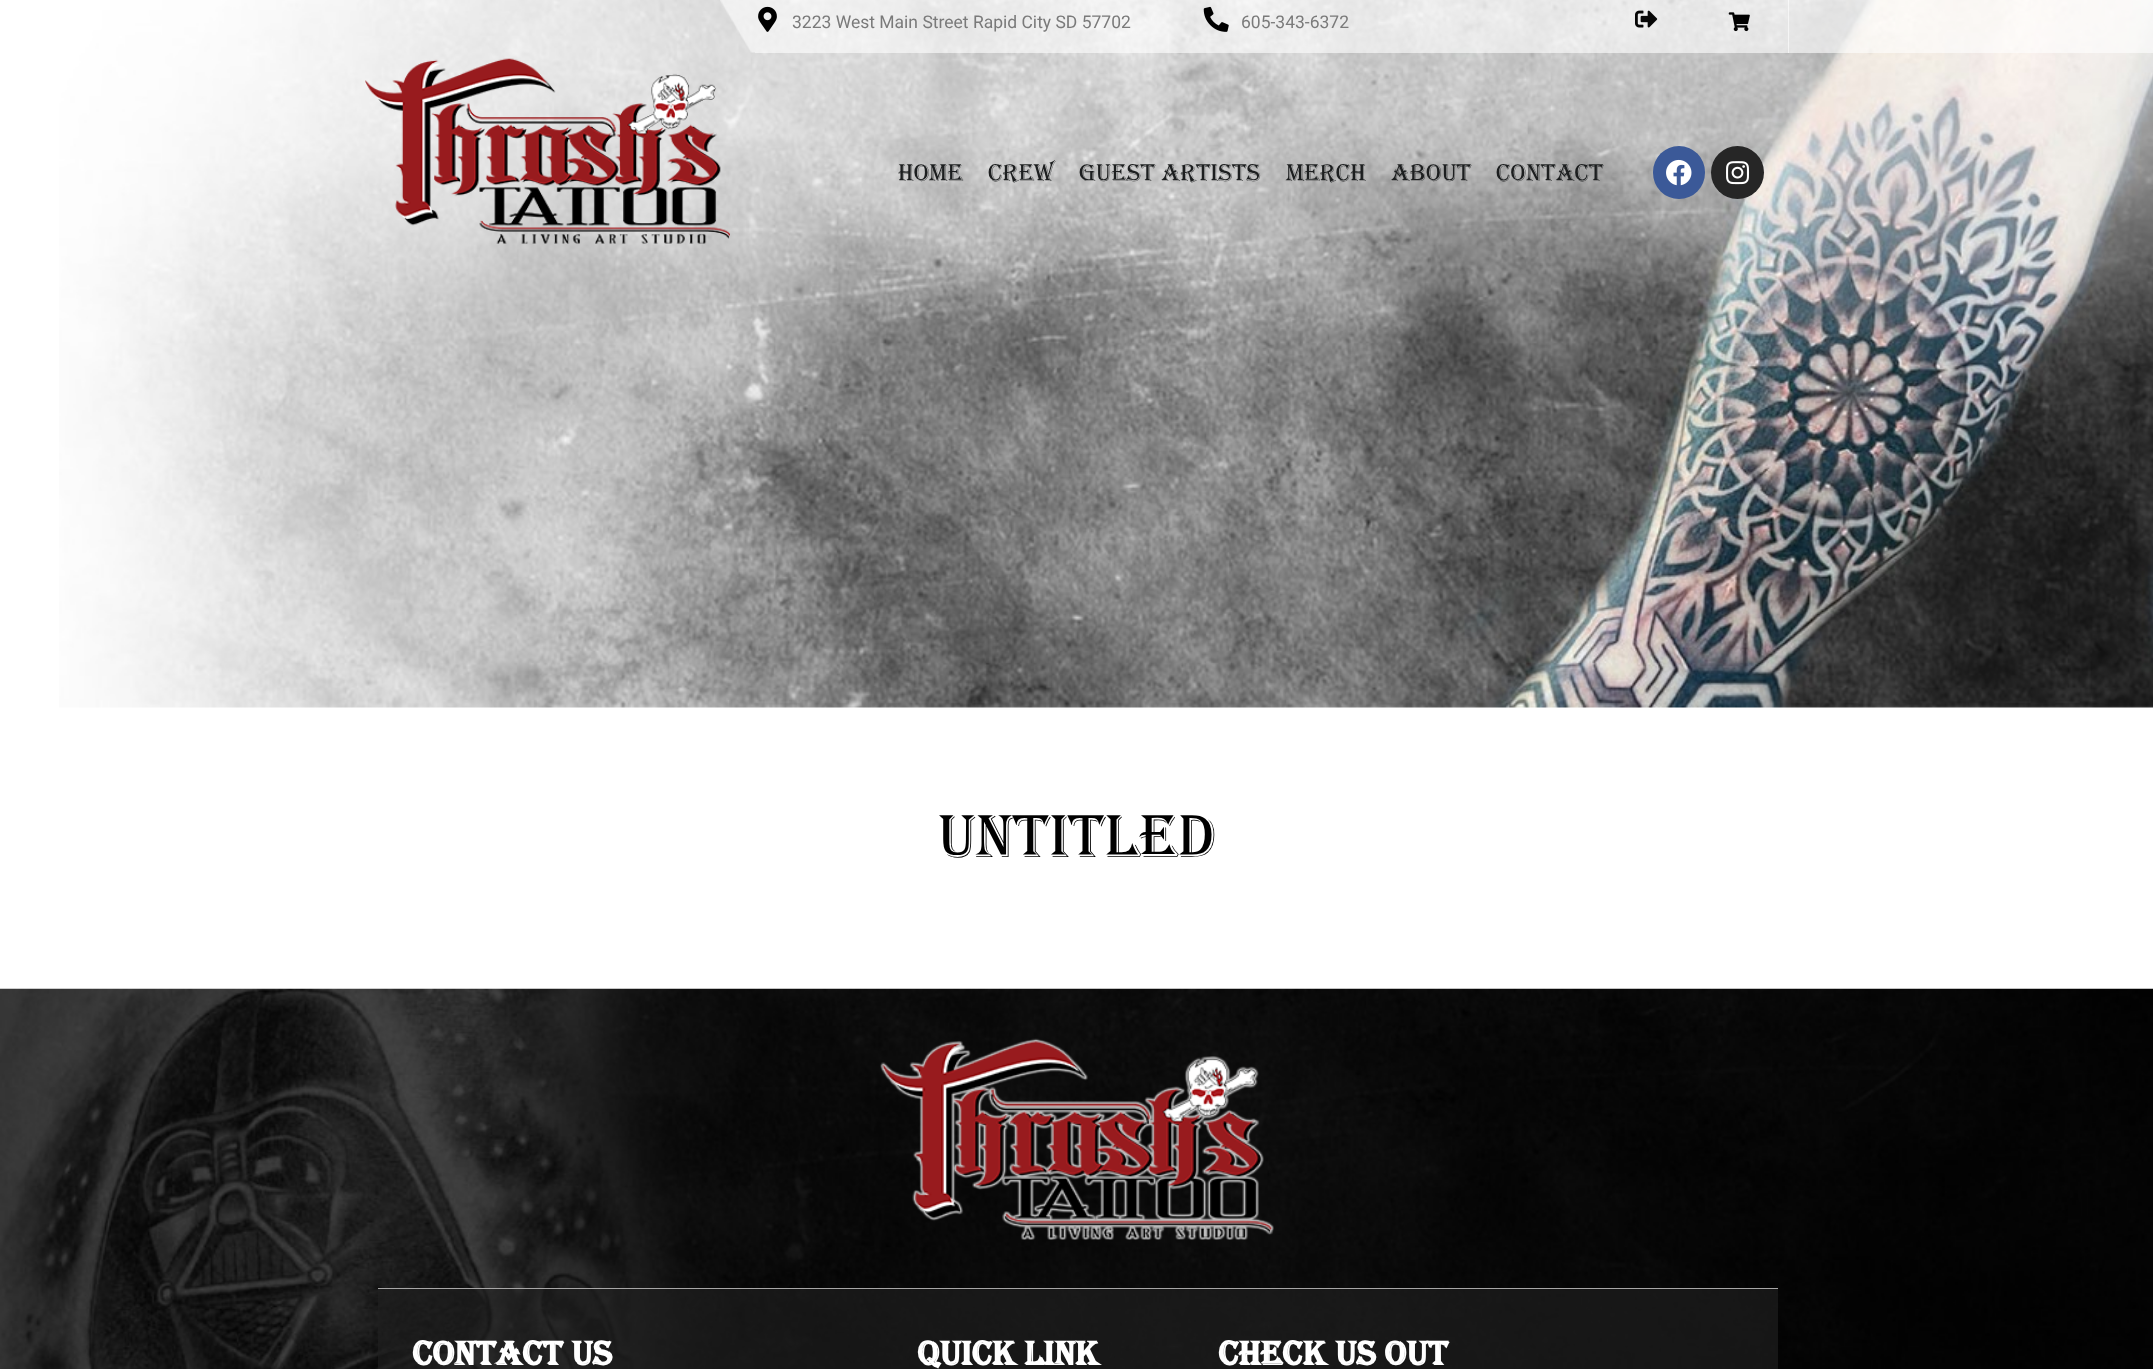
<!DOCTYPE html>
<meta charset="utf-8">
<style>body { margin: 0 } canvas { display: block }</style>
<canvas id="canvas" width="2153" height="1369"></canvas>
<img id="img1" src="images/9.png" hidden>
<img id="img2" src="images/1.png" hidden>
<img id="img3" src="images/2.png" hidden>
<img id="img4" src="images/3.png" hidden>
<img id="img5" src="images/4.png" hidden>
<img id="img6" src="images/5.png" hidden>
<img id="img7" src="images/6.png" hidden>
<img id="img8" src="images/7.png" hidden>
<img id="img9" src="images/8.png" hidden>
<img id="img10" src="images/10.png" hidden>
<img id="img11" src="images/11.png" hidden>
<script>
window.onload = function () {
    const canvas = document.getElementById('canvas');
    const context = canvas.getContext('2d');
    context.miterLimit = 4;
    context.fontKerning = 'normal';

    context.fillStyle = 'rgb(255, 255, 255)';
    context.fillRect(0, 0, 2153, 1369);
    context.drawImage(document.getElementById('img1'), 59, 0, 2094, 708);
    context.drawImage(document.getElementById('img2'), 365, 58, 365, 186);
    context.fillStyle = 'rgba(255, 255, 255, 0.6)';
    context.fillRect(755, 0, 1034, 53);
    context.drawImage(document.getElementById('img3'), 720, 0, 35, 53);
    context.drawImage(document.getElementById('img4'), 758, 6, 19, 26);
    context.drawImage(document.getElementById('img5'), 1203, 6, 26, 26);
    context.drawImage(document.getElementById('img6'), 1635, 10, 23, 18);
    context.drawImage(document.getElementById('img7'), 1728, 12, 22, 20);
    context.fillRect(1788, 0, 365, 53);
    context.fillStyle = 'rgb(59, 89, 152)';
    context.beginPath();
    context.roundRect(1653, 146, 52, 53, 26);
    context.fill();
    context.drawImage(document.getElementById('img8'), 1666, 159, 26, 27);
    context.fillStyle = 'rgb(38, 38, 38)';
    context.beginPath();
    context.arc(1737.5, 172.5, 26.5, 0, 2 * Math.PI);
    context.fill();
    context.drawImage(document.getElementById('img9'), 1726, 161, 24, 24);
    context.drawImage(document.getElementById('img10'), 0, 988, 2153, 381);
    context.drawImage(document.getElementById('img11'), 880, 1038, 394, 202);
    context.fillStyle = 'rgba(33, 33, 33, 0.65)';
    context.fillRect(378, 1289, 1400, 80);
    context.fillStyle = 'rgb(167, 166, 166)';
    context.fillRect(378, 1288, 1400, 1);
    context.font = '17.5px Roboto';
    context.fillStyle = 'rgb(122, 122, 122)';
    context.fillText('3223 West Main Street Rapid City SD 57702', 792, 28);
    context.fillText('605-343-6372', 1241, 28);
    context.font = '25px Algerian';
    context.fillStyle = 'rgb(28, 30, 31)';
    context.fillText('Home', 898, 181);
    context.fillText('Crew', 988, 181);
    context.fillText('Guest Artists', 1079, 181);
    context.fillText('Merch', 1286, 181);
    context.fillText('About', 1391, 181);
    context.fillText('Contact', 1496, 181);
    context.font = '62.5px Algerian';
    context.fillStyle = 'rgb(0, 0, 0)';
    context.fillText('Untitled', 938, 857);
    context.font = 'bold 35px Algerian';
    context.fillStyle = 'rgb(255, 255, 255)';
    context.fillText('CONTACT US', 412, 1365);
    context.fillText('QUICK LINK', 917, 1365);
    context.fillText('CHECK US OUT', 1218, 1365);
};
</script>
